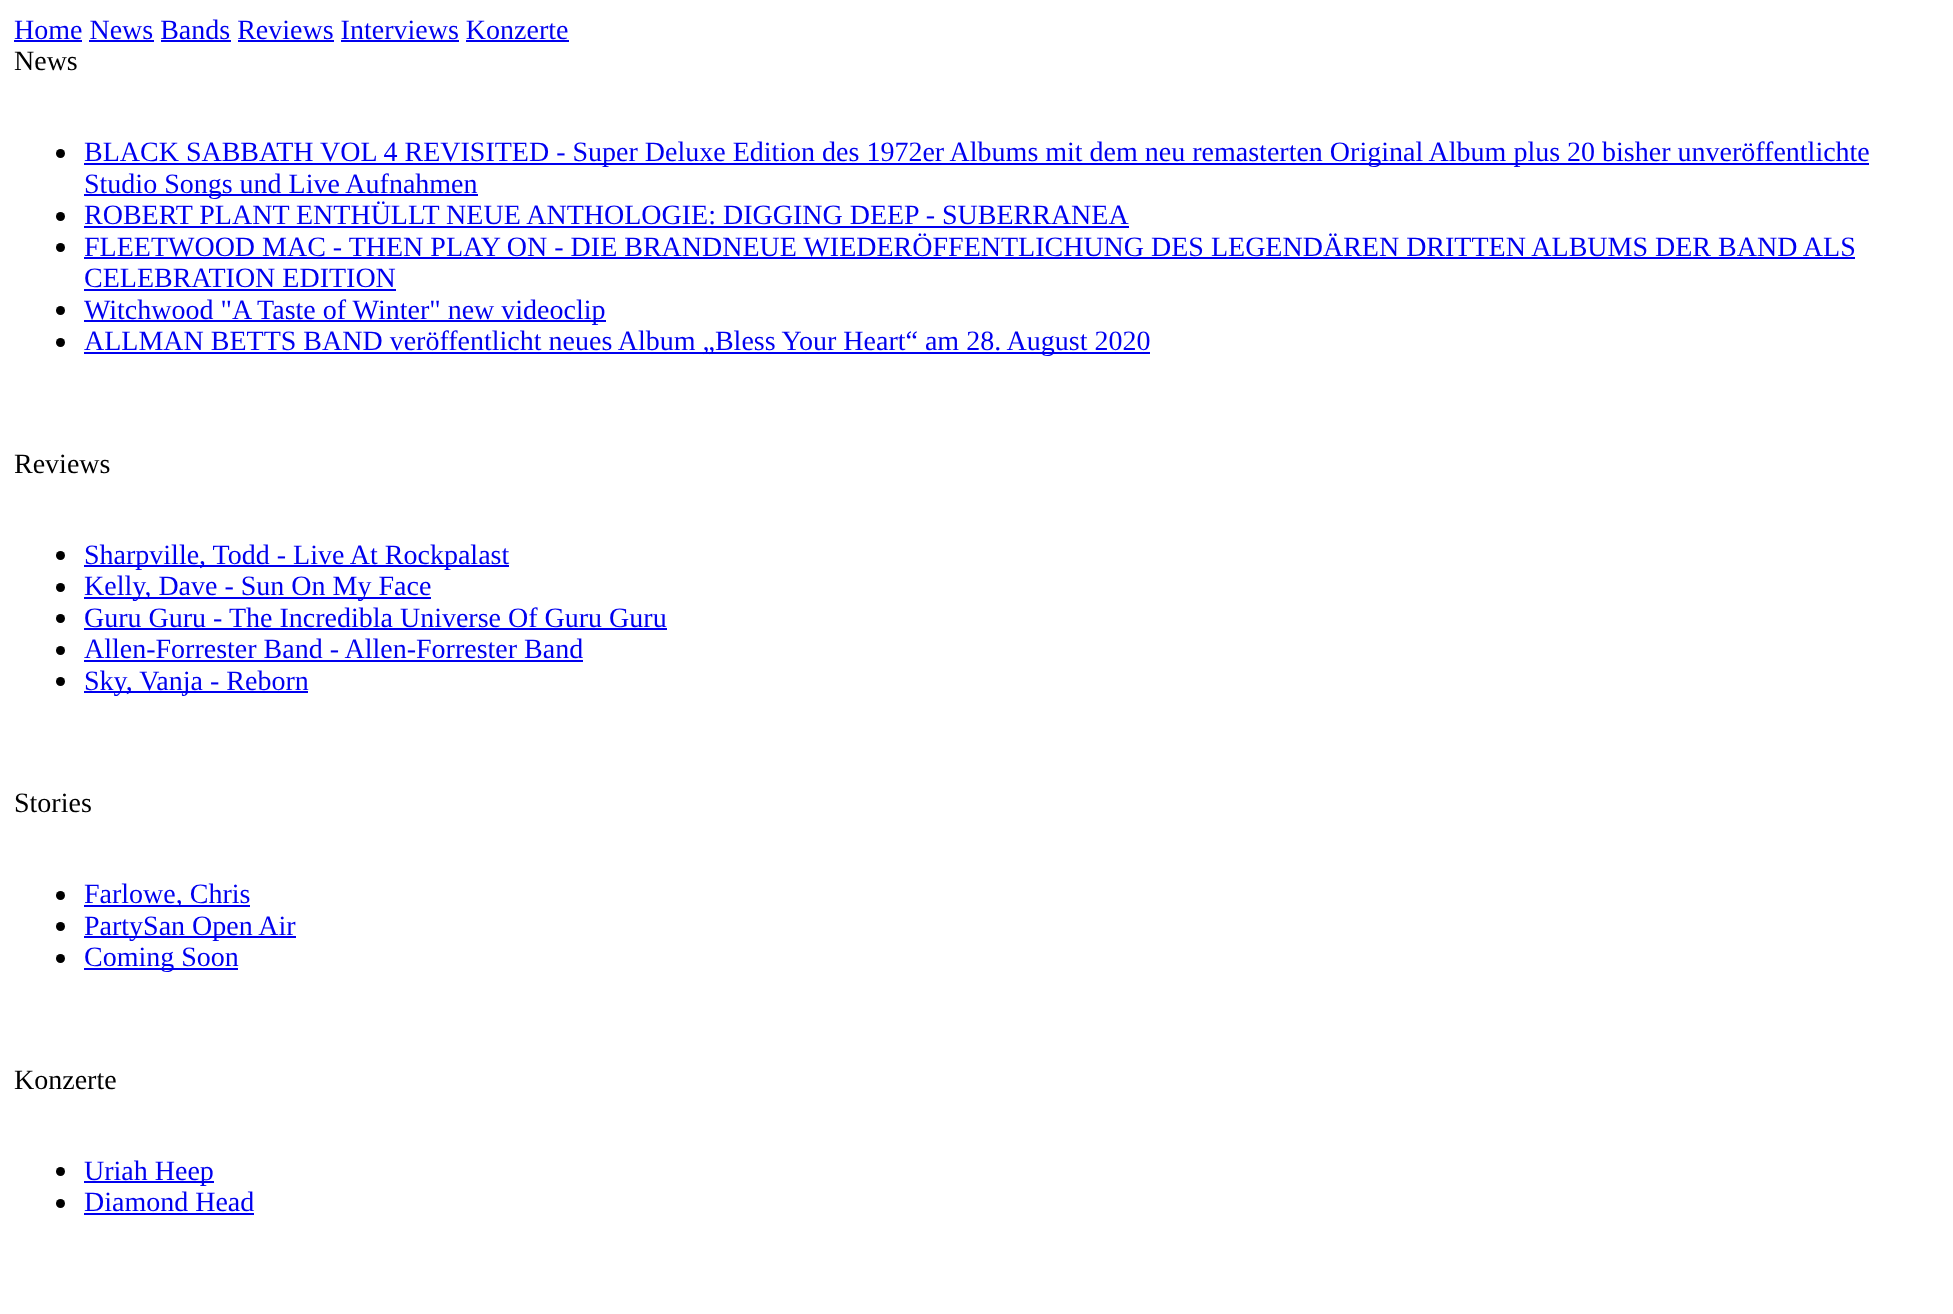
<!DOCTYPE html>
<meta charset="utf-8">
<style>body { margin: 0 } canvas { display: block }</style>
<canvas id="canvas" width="1953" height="1314"></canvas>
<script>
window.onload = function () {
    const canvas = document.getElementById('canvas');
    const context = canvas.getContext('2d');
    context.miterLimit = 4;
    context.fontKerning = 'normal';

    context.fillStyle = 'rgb(255, 255, 255)';
    context.fillRect(0, 0, 1953, 1314);
    context.fillStyle = 'rgb(0, 0, 238)';
    context.fillRect(14, 40, 68, 2);
    context.fillRect(89, 40, 65, 2);
    context.fillRect(161, 40, 70, 2);
    context.fillRect(238, 40, 96, 2);
    context.fillRect(341, 40, 118, 2);
    context.fillRect(466, 40, 103, 2);
    context.fillStyle = 'rgb(0, 0, 0)';
    context.beginPath();
    context.arc(60.5, 153.5, 4.5, 0, 2 * Math.PI);
    context.fill();
    context.fillStyle = 'rgb(0, 0, 238)';
    context.fillRect(84, 163, 1785, 2);
    context.fillRect(84, 194, 394, 2);
    context.fillStyle = 'rgb(0, 0, 0)';
    context.beginPath();
    context.arc(60.5, 216.5, 4.5, 0, 2 * Math.PI);
    context.fill();
    context.fillStyle = 'rgb(0, 0, 238)';
    context.fillRect(84, 226, 1045, 2);
    context.fillStyle = 'rgb(0, 0, 0)';
    context.beginPath();
    context.arc(60.5, 247.5, 4.5, 0, 2 * Math.PI);
    context.fill();
    context.fillStyle = 'rgb(0, 0, 238)';
    context.fillRect(84, 257, 1771, 2);
    context.fillRect(84, 289, 312, 2);
    context.fillStyle = 'rgb(0, 0, 0)';
    context.beginPath();
    context.arc(60.5, 310.5, 4.5, 0, 2 * Math.PI);
    context.fill();
    context.fillStyle = 'rgb(0, 0, 238)';
    context.fillRect(84, 320, 522, 2);
    context.fillStyle = 'rgb(0, 0, 0)';
    context.beginPath();
    context.arc(60.5, 342.5, 4.5, 0, 2 * Math.PI);
    context.fill();
    context.fillStyle = 'rgb(0, 0, 238)';
    context.fillRect(84, 352, 1066, 2);
    context.fillStyle = 'rgb(0, 0, 0)';
    context.beginPath();
    context.arc(60.5, 555.5, 4.5, 0, 2 * Math.PI);
    context.fill();
    context.fillStyle = 'rgb(0, 0, 238)';
    context.fillRect(84, 565, 425, 2);
    context.fillStyle = 'rgb(0, 0, 0)';
    context.beginPath();
    context.arc(60.5, 587.5, 4.5, 0, 2 * Math.PI);
    context.fill();
    context.fillStyle = 'rgb(0, 0, 238)';
    context.fillRect(84, 597, 347, 2);
    context.fillStyle = 'rgb(0, 0, 0)';
    context.beginPath();
    context.arc(60.5, 618.5, 4.5, 0, 2 * Math.PI);
    context.fill();
    context.fillStyle = 'rgb(0, 0, 238)';
    context.fillRect(84, 628, 583, 2);
    context.fillStyle = 'rgb(0, 0, 0)';
    context.beginPath();
    context.arc(60.5, 650.5, 4.5, 0, 2 * Math.PI);
    context.fill();
    context.fillStyle = 'rgb(0, 0, 238)';
    context.fillRect(84, 660, 499, 2);
    context.fillStyle = 'rgb(0, 0, 0)';
    context.beginPath();
    context.arc(60.5, 681.5, 4.5, 0, 2 * Math.PI);
    context.fill();
    context.fillStyle = 'rgb(0, 0, 238)';
    context.fillRect(84, 691, 224, 2);
    context.fillStyle = 'rgb(0, 0, 0)';
    context.beginPath();
    context.arc(60.5, 895.5, 4.5, 0, 2 * Math.PI);
    context.fill();
    context.fillStyle = 'rgb(0, 0, 238)';
    context.fillRect(84, 905, 166, 2);
    context.fillStyle = 'rgb(0, 0, 0)';
    context.beginPath();
    context.arc(60.5, 926.5, 4.5, 0, 2 * Math.PI);
    context.fill();
    context.fillStyle = 'rgb(0, 0, 238)';
    context.fillRect(84, 936, 212, 2);
    context.fillStyle = 'rgb(0, 0, 0)';
    context.beginPath();
    context.arc(60.5, 958.5, 4.5, 0, 2 * Math.PI);
    context.fill();
    context.fillStyle = 'rgb(0, 0, 238)';
    context.fillRect(84, 968, 154, 2);
    context.fillStyle = 'rgb(0, 0, 0)';
    context.beginPath();
    context.arc(60.5, 1171.5, 4.5, 0, 2 * Math.PI);
    context.fill();
    context.fillStyle = 'rgb(0, 0, 238)';
    context.fillRect(84, 1181, 130, 2);
    context.fillStyle = 'rgb(0, 0, 0)';
    context.beginPath();
    context.arc(60.5, 1203.5, 4.5, 0, 2 * Math.PI);
    context.fill();
    context.fillStyle = 'rgb(0, 0, 238)';
    context.fillRect(84, 1213, 170, 2);
    context.font = '28px Liberation Serif';
    context.fillText('Home News Bands Reviews Interviews Konzerte', 14, 39);
    context.fillStyle = 'rgb(0, 0, 0)';
    context.fillText('News', 14, 70);
    context.fillStyle = 'rgb(0, 0, 238)';
    context.fillText('BLACK SABBATH VOL 4 REVISITED - Super Deluxe Edition des 1972er Albums mit dem neu remasterten Original Album plus 20 bisher unveröffentlichte', 84, 161);
    context.fillText('Studio Songs und Live Aufnahmen', 84, 193);
    context.fillText('ROBERT PLANT ENTHÜLLT NEUE ANTHOLOGIE: DIGGING DEEP - SUBERRANEA', 84, 224);
    context.fillText('FLEETWOOD MAC - THEN PLAY ON - DIE BRANDNEUE WIEDERÖFFENTLICHUNG DES LEGENDÄREN DRITTEN ALBUMS DER BAND ALS', 84, 256);
    context.fillText('CELEBRATION EDITION', 84, 287);
    context.fillText('Witchwood "A Taste of Winter" new videoclip', 84, 319);
    context.fillText('ALLMAN BETTS BAND veröffentlicht neues Album „Bless Your Heart“ am 28. August 2020', 84, 350);
    context.fillStyle = 'rgb(0, 0, 0)';
    context.fillText('Reviews', 14, 473);
    context.fillStyle = 'rgb(0, 0, 238)';
    context.fillText('Sharpville, Todd - Live At Rockpalast', 84, 564);
    context.fillText('Kelly, Dave - Sun On My Face', 84, 595);
    context.fillText('Guru Guru - The Incredibla Universe Of Guru Guru', 84, 627);
    context.fillText('Allen-Forrester Band - Allen-Forrester Band', 84, 658);
    context.fillText('Sky, Vanja - Reborn', 84, 690);
    context.fillStyle = 'rgb(0, 0, 0)';
    context.fillText('Stories', 14, 812);
    context.fillStyle = 'rgb(0, 0, 238)';
    context.fillText('Farlowe, Chris', 84, 903);
    context.fillText('PartySan Open Air', 84, 935);
    context.fillText('Coming Soon', 84, 966);
    context.fillStyle = 'rgb(0, 0, 0)';
    context.fillText('Konzerte', 14, 1089);
    context.fillStyle = 'rgb(0, 0, 238)';
    context.fillText('Uriah Heep', 84, 1180);
    context.fillText('Diamond Head', 84, 1211);
};
</script>
